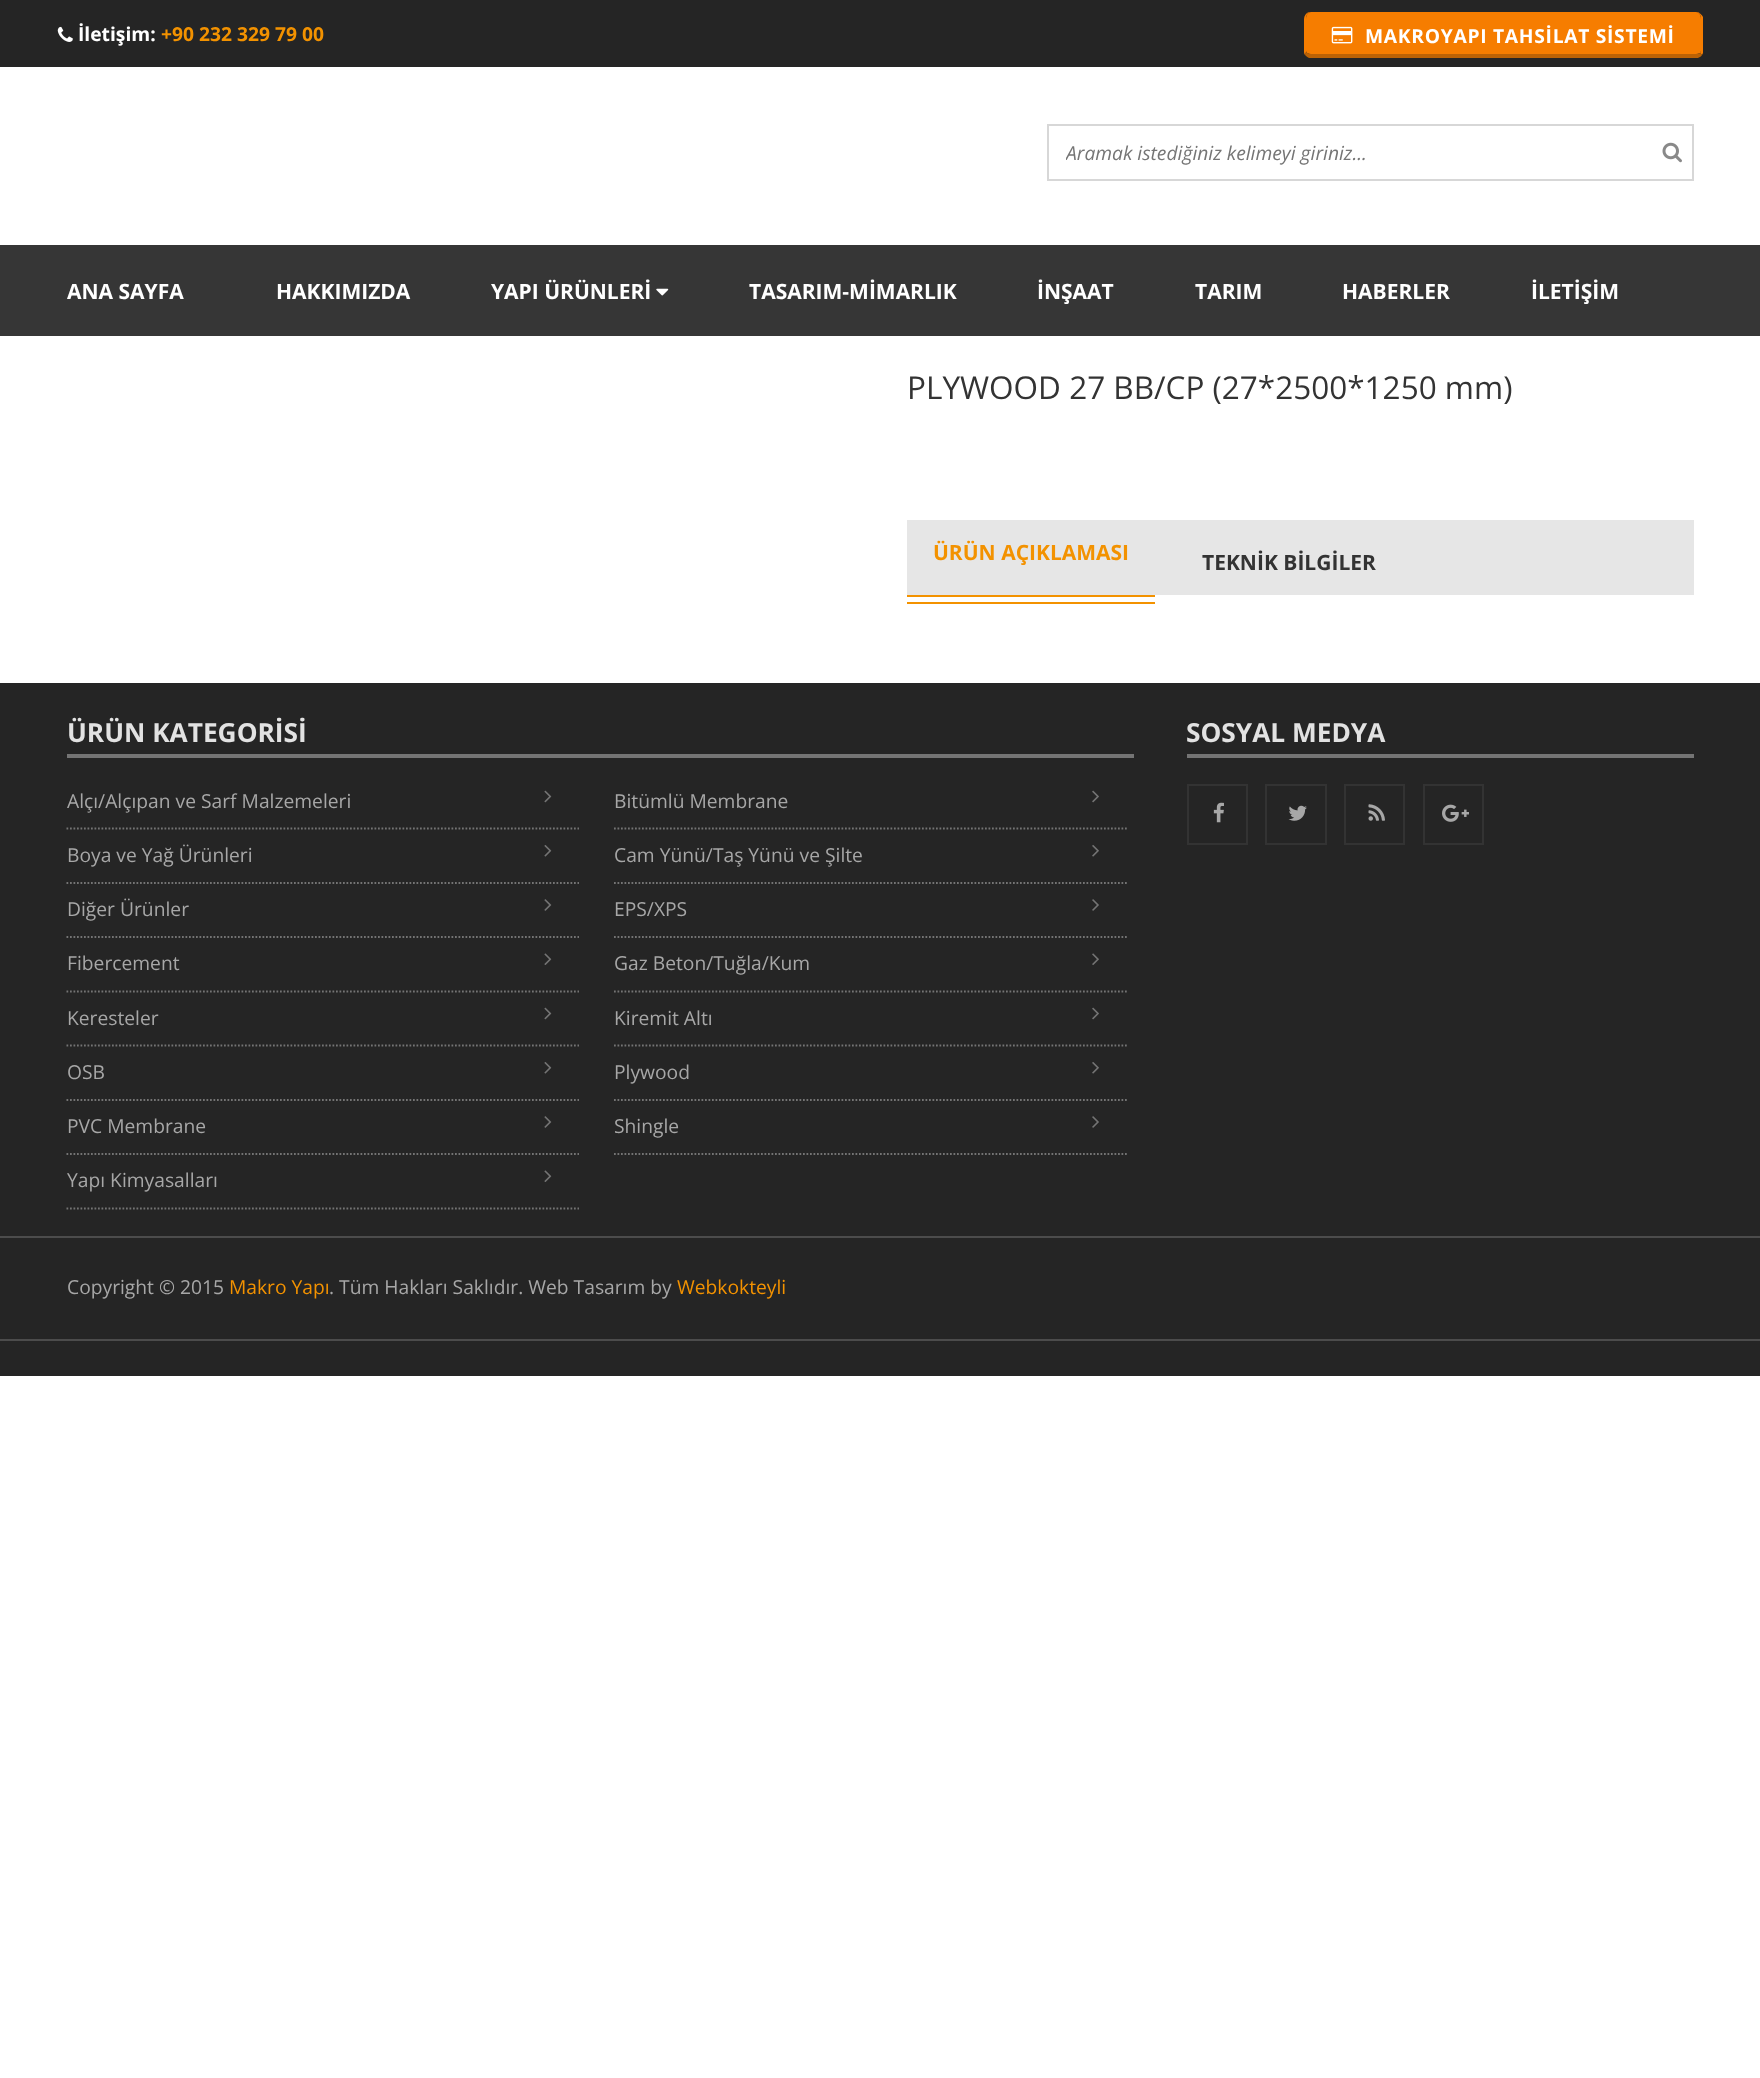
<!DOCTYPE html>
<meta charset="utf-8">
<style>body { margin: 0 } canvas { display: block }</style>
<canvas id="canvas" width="1760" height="2078"></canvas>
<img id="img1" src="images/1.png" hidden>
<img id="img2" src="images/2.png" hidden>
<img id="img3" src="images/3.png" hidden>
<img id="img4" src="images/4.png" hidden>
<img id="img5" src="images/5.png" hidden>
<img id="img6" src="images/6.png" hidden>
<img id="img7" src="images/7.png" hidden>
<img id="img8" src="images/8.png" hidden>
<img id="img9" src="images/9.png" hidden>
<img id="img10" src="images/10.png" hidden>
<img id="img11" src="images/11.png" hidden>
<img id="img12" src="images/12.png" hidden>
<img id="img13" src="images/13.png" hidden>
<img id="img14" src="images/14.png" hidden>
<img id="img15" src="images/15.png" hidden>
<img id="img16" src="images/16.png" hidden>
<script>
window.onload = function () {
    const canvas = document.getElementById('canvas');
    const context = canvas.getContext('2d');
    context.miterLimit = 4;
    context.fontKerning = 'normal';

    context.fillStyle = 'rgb(255, 255, 255)';
    context.fillRect(0, 0, 1760, 2078);
    context.fillStyle = 'rgb(37, 37, 37)';
    context.fillRect(0, 0, 1760, 67);
    context.drawImage(document.getElementById('img1'), 57, 26, 16, 16);
    context.fillStyle = 'rgb(246, 125, 0)';
    context.beginPath();
    context.moveTo(1311, 12);
    context.lineTo(1696, 12);
    context.bezierCurveTo(1699, 12, 1701, 15, 1701, 19);
    context.lineTo(1701, 51);
    context.bezierCurveTo(1701, 53, 1699, 54, 1696, 54);
    context.lineTo(1311, 54);
    context.bezierCurveTo(1308, 54, 1306, 53, 1306, 51);
    context.lineTo(1306, 19);
    context.bezierCurveTo(1306, 15, 1308, 12, 1311, 12);
    context.closePath();
    context.fill();
    context.beginPath();
    context.moveTo(1700, 53);
    context.lineTo(1701, 51);
    context.lineTo(1701, 19);
    context.bezierCurveTo(1701, 16, 1700, 13, 1697, 12);
    context.lineTo(1698, 12);
    context.bezierCurveTo(1700, 13, 1702, 15, 1703, 17);
    context.lineTo(1703, 53);
    context.lineTo(1702, 55);
    context.closePath();
    context.fill();
    context.fillStyle = 'rgb(187, 98, 5)';
    context.beginPath();
    context.moveTo(1306, 52);
    context.lineTo(1309, 54);
    context.lineTo(1696, 54);
    context.bezierCurveTo(1697, 54, 1699, 54, 1700, 53);
    context.lineTo(1702, 55);
    context.bezierCurveTo(1701, 57, 1699, 57, 1698, 58);
    context.lineTo(1309, 58);
    context.bezierCurveTo(1307, 57, 1306, 56, 1305, 55);
    context.closePath();
    context.fill();
    context.fillStyle = 'rgb(246, 125, 0)';
    context.beginPath();
    context.moveTo(1310, 12);
    context.bezierCurveTo(1307, 13, 1306, 16, 1306, 19);
    context.lineTo(1306, 51);
    context.lineTo(1306, 52);
    context.lineTo(1305, 55);
    context.bezierCurveTo(1304, 54, 1304, 52, 1304, 51);
    context.lineTo(1304, 19);
    context.bezierCurveTo(1304, 16, 1306, 13, 1309, 12);
    context.closePath();
    context.fill();
    context.drawImage(document.getElementById('img2'), 1331, 26, 22, 18);
    context.fillStyle = 'rgb(215, 215, 215)';
    context.fillRect(1047, 124, 647, 2);
    context.fillRect(1047, 179, 616, 2);
    context.fillRect(1047, 124, 2, 56);
    context.fillRect(1692, 124, 2, 56);
    context.fillRect(1663, 179, 31, 2);
    context.drawImage(document.getElementById('img3'), 1662, 142, 20, 21);
    context.fillStyle = 'rgb(54, 54, 54)';
    context.fillRect(0, 245, 1760, 91);
    context.drawImage(document.getElementById('img4'), 656, 288, 13, 8);
    context.fillStyle = 'rgb(230, 230, 230)';
    context.fillRect(907, 520, 787, 75);
    context.beginPath();
    context.roundRect(907, 520, 248, 77, [7, 7, 0, 0]);
    context.fill();
    context.fillStyle = 'rgb(243, 146, 0)';
    context.fillRect(907, 595, 248, 2);
    context.fillRect(907, 602, 248, 2);
    context.fillStyle = 'rgb(37, 37, 37)';
    context.fillRect(0, 683, 1760, 693);
    context.fillStyle = 'rgb(116, 116, 116)';
    context.fillRect(67, 754, 1067, 4);
    context.beginPath();
    context.moveTo(66.5, 828.5);
    context.lineTo(579, 828.5);
    context.strokeStyle = 'rgb(116, 116, 116)';
    context.lineWidth = 1.8;
    context.setLineDash([1.75, 1.75]);
    context.stroke();
    context.drawImage(document.getElementById('img5'), 544, 790, 8, 13);
    context.beginPath();
    context.moveTo(614, 828.5);
    context.lineTo(1127, 828.5);
    context.stroke();
    context.drawImage(document.getElementById('img6'), 1092, 790, 7, 13);
    context.beginPath();
    context.moveTo(66.5, 883);
    context.lineTo(579, 883);
    context.stroke();
    context.drawImage(document.getElementById('img7'), 544, 845, 8, 12);
    context.beginPath();
    context.moveTo(614, 883);
    context.lineTo(1127, 883);
    context.stroke();
    context.drawImage(document.getElementById('img8'), 1092, 845, 7, 12);
    context.beginPath();
    context.moveTo(66.5, 937);
    context.lineTo(579, 937);
    context.stroke();
    context.drawImage(document.getElementById('img9'), 544, 899, 8, 12);
    context.beginPath();
    context.moveTo(614, 937);
    context.lineTo(1127, 937);
    context.stroke();
    context.drawImage(document.getElementById('img10'), 1092, 899, 7, 12);
    context.beginPath();
    context.moveTo(66.5, 991.5);
    context.lineTo(579, 991.5);
    context.stroke();
    context.drawImage(document.getElementById('img11'), 544, 953, 8, 12);
    context.beginPath();
    context.moveTo(614, 991.5);
    context.lineTo(1127, 991.5);
    context.stroke();
    context.drawImage(document.getElementById('img12'), 1092, 953, 7, 12);
    context.beginPath();
    context.moveTo(66.5, 1045.5);
    context.lineTo(579, 1045.5);
    context.stroke();
    context.drawImage(document.getElementById('img5'), 544, 1007, 8, 13);
    context.beginPath();
    context.moveTo(614, 1045.5);
    context.lineTo(1127, 1045.5);
    context.stroke();
    context.drawImage(document.getElementById('img6'), 1092, 1007, 7, 13);
    context.beginPath();
    context.moveTo(66.5, 1100);
    context.lineTo(579, 1100);
    context.stroke();
    context.drawImage(document.getElementById('img7'), 544, 1062, 8, 12);
    context.beginPath();
    context.moveTo(614, 1100);
    context.lineTo(1127, 1100);
    context.stroke();
    context.drawImage(document.getElementById('img8'), 1092, 1062, 7, 12);
    context.beginPath();
    context.moveTo(66.5, 1154);
    context.lineTo(579, 1154);
    context.stroke();
    context.drawImage(document.getElementById('img9'), 544, 1116, 8, 12);
    context.beginPath();
    context.moveTo(614, 1154);
    context.lineTo(1127, 1154);
    context.stroke();
    context.drawImage(document.getElementById('img10'), 1092, 1116, 7, 12);
    context.beginPath();
    context.moveTo(66.5, 1208.5);
    context.lineTo(579, 1208.5);
    context.stroke();
    context.drawImage(document.getElementById('img11'), 544, 1170, 8, 12);
    context.fillRect(1187, 754, 507, 4);
    context.strokeStyle = 'rgb(51, 51, 51)';
    context.lineWidth = 2;
    context.setLineDash([]);
    context.strokeRect(1188, 785, 59, 59);
    context.drawImage(document.getElementById('img13'), 1213, 802, 11, 21);
    context.strokeRect(1266, 785, 60, 59);
    context.drawImage(document.getElementById('img14'), 1288, 805, 19, 16);
    context.strokeRect(1345, 785, 59, 59);
    context.drawImage(document.getElementById('img15'), 1368, 804, 17, 17);
    context.strokeRect(1424, 785, 59, 59);
    context.drawImage(document.getElementById('img16'), 1442, 804, 27, 18);
    context.fillStyle = 'rgb(76, 76, 76)';
    context.fillRect(0, 1236, 1760, 2);
    context.fillRect(0, 1339, 1760, 2);
    context.font = 'bold 19.25px Open Sans';
    context.fillStyle = 'rgb(255, 255, 255)';
    context.fillText('İletişim:', 78, 41);
    context.fillStyle = 'rgb(243, 146, 0)';
    context.fillText('+90 232 329 79 00', 161, 41);
    context.letterSpacing = '0.7px';
    context.fillStyle = 'rgb(255, 255, 255)';
    context.fillText('MAKROYAPI TAHSİLAT SİSTEMİ', 1365, 43);
    context.save();
    context.beginPath();
    context.rect(1066, 140, 586, 26);
    context.clip();
    context.letterSpacing = '0px';
    context.font = 'italic 19.25px Open Sans';
    context.fillStyle = 'rgb(117, 117, 117)';
    context.fillText('Aramak istediğiniz kelimeyi giriniz...', 1066, 160);
    context.restore();
    context.letterSpacing = '0px';
    context.font = 'bold 21px Open Sans';
    context.fillText('ANA SAYFA', 67, 299);
    context.fillText('HAKKIMIZDA', 276, 299);
    context.fillText('YAPI ÜRÜNLERİ', 491, 299);
    context.fillText('TASARIM-MİMARLIK', 749, 299);
    context.fillText('İNŞAAT', 1037, 299);
    context.fillText('TARIM', 1195, 299);
    context.fillText('HABERLER', 1342, 299);
    context.fillText('İLETİŞİM', 1531, 299);
    context.font = '31.5px Open Sans';
    context.fillStyle = 'rgb(51, 51, 51)';
    context.fillText('PLYWOOD 27 BB/CP (27*2500*1250 mm)', 907, 399);
    context.font = 'bold 21px Open Sans';
    context.fillStyle = 'rgb(243, 146, 0)';
    context.fillText('ÜRÜN AÇIKLAMASI', 933, 560);
    context.fillStyle = 'rgb(51, 51, 51)';
    context.fillText('TEKNİK BİLGİLER', 1202, 570);
    context.font = 'bold 26.25px Open Sans';
    context.fillStyle = 'rgb(226, 226, 226)';
    context.fillText('ÜRÜN KATEGORİSİ', 67, 742);
    context.font = '19.25px Open Sans';
    context.fillStyle = 'rgb(167, 167, 167)';
    context.fillText('Alçı/Alçıpan ve Sarf Malzemeleri', 67, 808);
    context.fillText('Bitümlü Membrane', 614, 808);
    context.fillText('Boya ve Yağ Ürünleri', 67, 862);
    context.fillText('Cam Yünü/Taş Yünü ve Şilte', 614, 862);
    context.fillText('Diğer Ürünler', 67, 916);
    context.fillText('EPS/XPS', 614, 916);
    context.fillText('Fibercement', 67, 970);
    context.fillText('Gaz Beton/Tuğla/Kum', 614, 970);
    context.fillText('Keresteler', 67, 1025);
    context.fillText('Kiremit Altı', 614, 1025);
    context.fillText('OSB', 67, 1079);
    context.fillText('Plywood', 614, 1079);
    context.fillText('PVC Membrane', 67, 1133);
    context.fillText('Shingle', 614, 1133);
    context.fillText('Yapı Kimyasalları', 67, 1187);
    context.font = 'bold 26.25px Open Sans';
    context.fillStyle = 'rgb(226, 226, 226)';
    context.fillText('SOSYAL MEDYA', 1186, 742);
    context.font = '19.25px Open Sans';
    context.fillStyle = 'rgb(167, 167, 167)';
    context.fillText('Copyright © 2015', 67, 1294);
    context.fillStyle = 'rgb(243, 146, 0)';
    context.fillText('Makro Yapı', 229, 1294);
    context.fillStyle = 'rgb(167, 167, 167)';
    context.fillText('. Tüm Hakları Saklıdır. Web Tasarım by', 329, 1294);
    context.fillStyle = 'rgb(243, 146, 0)';
    context.fillText('Webkokteyli', 677, 1294);
};
</script>
